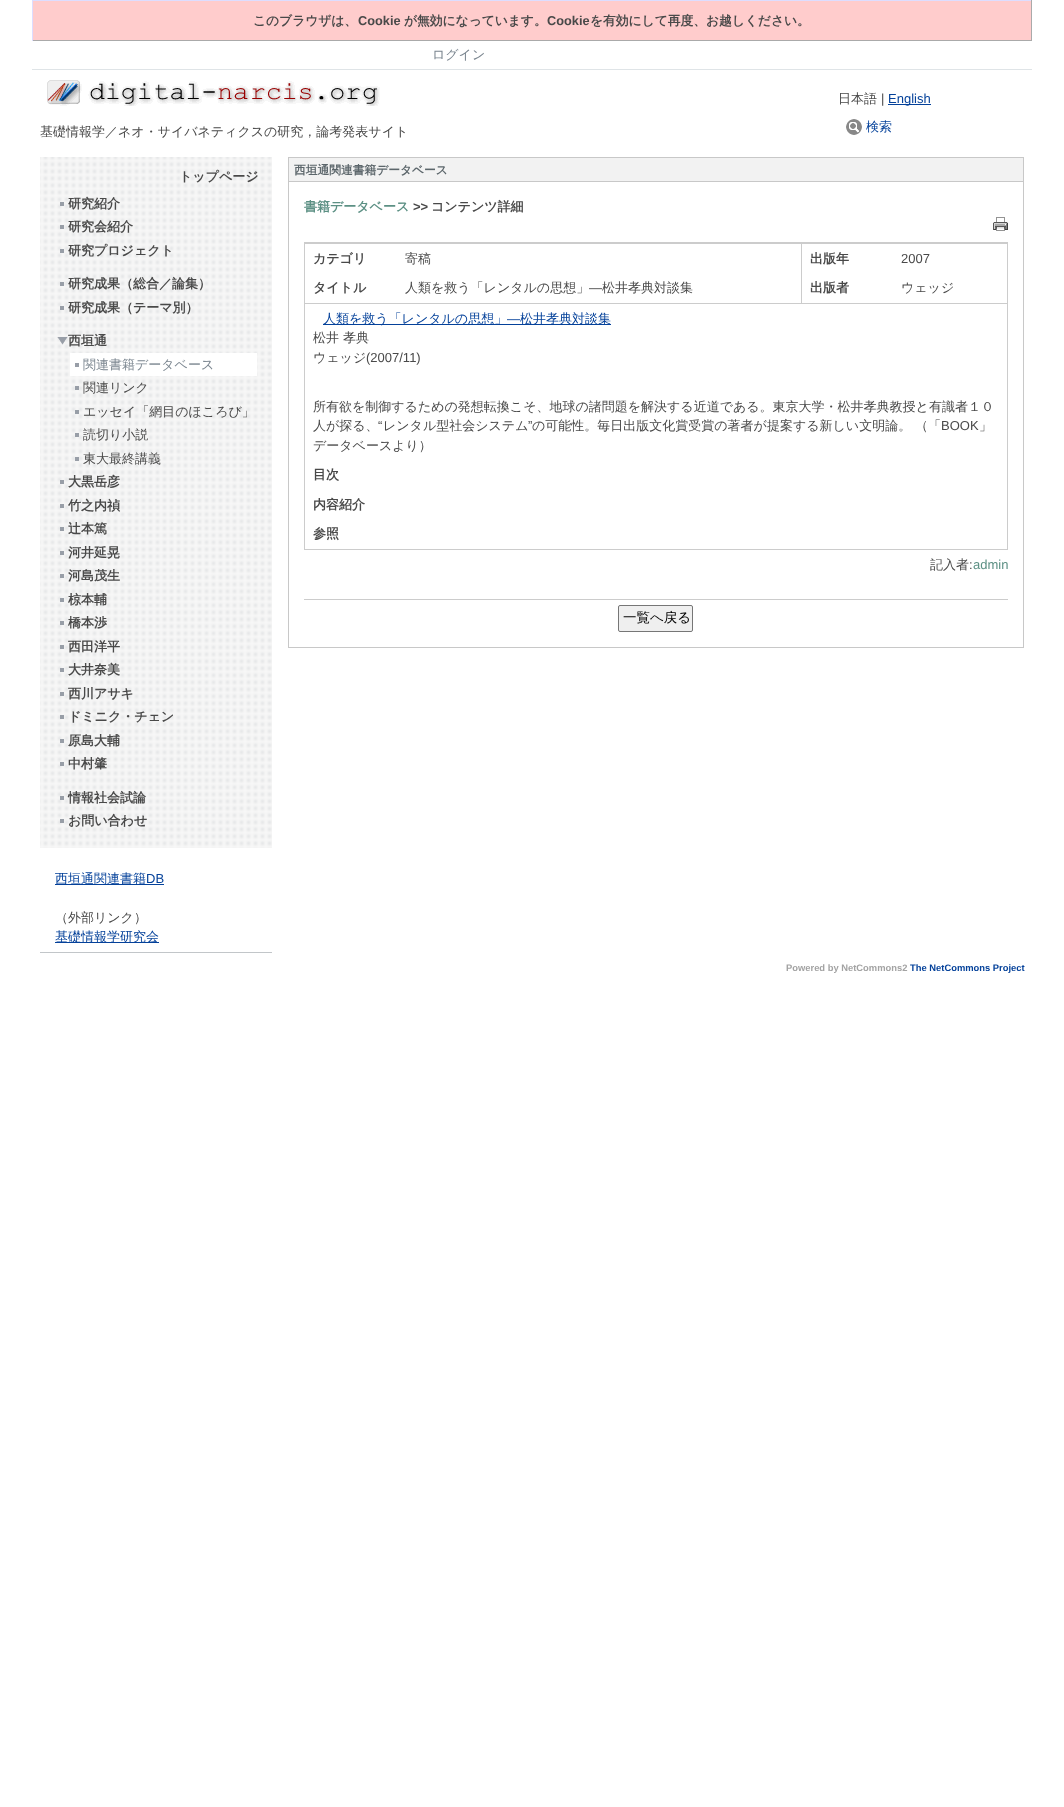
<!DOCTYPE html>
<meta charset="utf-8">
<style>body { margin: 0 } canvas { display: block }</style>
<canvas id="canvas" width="1064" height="1807"></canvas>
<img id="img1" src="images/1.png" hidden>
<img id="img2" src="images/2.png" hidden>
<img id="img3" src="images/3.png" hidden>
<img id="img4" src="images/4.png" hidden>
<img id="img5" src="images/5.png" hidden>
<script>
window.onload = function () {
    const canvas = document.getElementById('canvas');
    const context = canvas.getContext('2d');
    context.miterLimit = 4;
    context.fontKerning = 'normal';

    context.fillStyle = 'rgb(255, 255, 255)';
    context.fillRect(0, 0, 1064, 1807);
    context.fillStyle = 'rgb(255, 204, 204)';
    context.fillRect(33, 1, 998, 39);
    context.fillStyle = 'rgb(221, 221, 255)';
    context.fillRect(32, 0, 1000, 1);
    context.fillStyle = 'rgb(170, 170, 170)';
    context.fillRect(1031, 0, 1, 41);
    context.fillRect(32, 40, 1000, 1);
    context.fillStyle = 'rgb(221, 221, 255)';
    context.fillRect(32, 0, 1, 41);
    context.fillStyle = 'rgb(223, 228, 231)';
    context.fillRect(32, 69, 1000, 1);
    context.drawImage(document.getElementById('img1'), 47, 80, 333, 26);
    context.fillStyle = 'rgb(4, 65, 154)';
    context.fillRect(888, 104, 43, 1);
    context.drawImage(document.getElementById('img2'), 846, 119, 16, 16);
    context.drawImage(document.getElementById('img3'), 40, 157, 232, 691);
    context.fillStyle = 'rgb(152, 158, 167)';
    context.fillRect(60, 202, 4, 4);
    context.fillRect(60, 225, 4, 4);
    context.fillRect(60, 249, 4, 4);
    context.fillRect(60, 282, 4, 4);
    context.fillRect(60, 306, 4, 4);
    context.drawImage(document.getElementById('img4'), 57, 337, 11, 8);
    context.fillStyle = 'rgb(255, 255, 255)';
    context.fillRect(70, 353, 187, 23);
    context.fillStyle = 'rgb(152, 158, 167)';
    context.fillRect(75, 363, 4, 4);
    context.fillRect(75, 386, 4, 4);
    context.fillRect(75, 410, 4, 4);
    context.fillRect(75, 433, 4, 4);
    context.fillRect(75, 457, 4, 4);
    context.fillRect(60, 480, 4, 4);
    context.fillRect(60, 504, 4, 4);
    context.fillRect(60, 527, 4, 4);
    context.fillRect(60, 551, 4, 4);
    context.fillRect(60, 574, 4, 4);
    context.fillRect(60, 598, 4, 4);
    context.fillRect(60, 621, 4, 4);
    context.fillRect(60, 645, 4, 4);
    context.fillRect(60, 668, 4, 4);
    context.fillRect(60, 692, 4, 4);
    context.fillRect(60, 715, 4, 4);
    context.fillRect(60, 739, 4, 4);
    context.fillRect(60, 762, 4, 4);
    context.fillRect(60, 796, 4, 4);
    context.fillRect(60, 819, 4, 4);
    context.fillStyle = 'rgb(4, 65, 154)';
    context.fillRect(55, 884, 109, 1);
    context.fillRect(55, 942, 104, 1);
    context.fillStyle = 'rgb(194, 198, 201)';
    context.fillRect(40, 952, 232, 1);
    context.fillStyle = 'rgb(200, 200, 200)';
    context.fillRect(288, 157, 736, 1);
    context.fillRect(1023, 157, 1, 491);
    context.fillRect(288, 647, 736, 1);
    context.fillRect(288, 157, 1, 491);
    context.fillStyle = 'rgb(242, 242, 242)';
    context.fillRect(289, 158, 734, 23);
    context.fillStyle = 'rgb(200, 200, 200)';
    context.fillRect(288, 181, 736, 1);
    context.drawImage(document.getElementById('img5'), 993, 217, 15, 14);
    context.fillStyle = 'rgb(204, 204, 204)';
    context.fillRect(304, 242, 704, 1);
    context.fillRect(1007, 242, 1, 308);
    context.fillRect(304, 549, 704, 1);
    context.fillRect(304, 242, 1, 308);
    context.fillRect(801, 242, 1, 61);
    context.fillRect(305, 243, 496, 1);
    context.fillRect(802, 243, 205, 1);
    context.fillRect(305, 303, 702, 1);
    context.fillStyle = 'rgb(4, 65, 154)';
    context.fillRect(323, 324, 288, 1);
    context.fillStyle = 'rgb(204, 204, 204)';
    context.fillRect(304, 599, 704, 1);
    context.fillStyle = 'rgb(239, 239, 239)';
    context.beginPath();
    context.roundRect(618.5, 605.5, 74, 26, 1.5);
    context.fill();
    context.strokeStyle = 'rgb(118, 118, 118)';
    context.stroke();
    context.font = 'bold 12.75px WenQuanYi Zen Hei';
    context.fillStyle = 'rgb(73, 73, 73)';
    context.fillText('このブラウザは、', 253, 25);
    context.font = 'bold 12.75px Liberation Sans';
    context.fillText('Cookie', 358, 25);
    context.font = 'bold 12.75px WenQuanYi Zen Hei';
    context.fillText('が無効になっています。', 404, 25);
    context.font = 'bold 12.75px Liberation Sans';
    context.fillText('Cookie', 547, 25);
    context.font = 'bold 12.75px WenQuanYi Zen Hei';
    context.fillText('を有効にして再度、お越しください。', 590, 25);
    context.font = '500 13px WenQuanYi Zen Hei';
    context.fillStyle = 'rgb(122, 133, 143)';
    context.fillText('ログイン', 432, 59);
    context.fillStyle = 'rgb(73, 73, 73)';
    context.fillText('基礎情報学／ネオ・サイバネティクスの研究，論考発表サイト', 40, 136);
    context.fillText('日本語', 838, 103);
    context.font = '13px Liberation Sans';
    context.fillText('|', 881, 103);
    context.fillStyle = 'rgb(4, 65, 154)';
    context.fillText('English', 888, 103);
    context.font = '500 13px WenQuanYi Zen Hei';
    context.fillText('検索', 866, 131);
    context.font = 'bold 13px WenQuanYi Zen Hei';
    context.fillStyle = 'rgb(73, 73, 73)';
    context.fillText('トップページ', 179, 181);
    context.fillText('研究紹介', 68, 208);
    context.fillText('研究会紹介', 68, 231);
    context.fillText('研究プロジェクト', 68, 255);
    context.fillText('研究成果（総合／論集）', 68, 288);
    context.fillText('研究成果（テーマ別）', 68, 312);
    context.fillText('西垣通', 68, 345);
    context.font = '500 13px WenQuanYi Zen Hei';
    context.fillStyle = 'rgb(122, 133, 143)';
    context.fillText('関連書籍データベース', 83, 369);
    context.fillStyle = 'rgb(73, 73, 73)';
    context.fillText('関連リンク', 83, 392);
    context.fillText('エッセイ「網目のほころび」', 83, 416);
    context.fillText('読切り小説', 83, 439);
    context.fillText('東大最終講義', 83, 463);
    context.font = 'bold 13px WenQuanYi Zen Hei';
    context.fillText('大黒岳彦', 68, 486);
    context.fillText('竹之内禎', 68, 510);
    context.fillText('辻本篤', 68, 533);
    context.fillText('河井延晃', 68, 557);
    context.fillText('河島茂生', 68, 580);
    context.fillText('椋本輔', 68, 604);
    context.fillText('橋本渉', 68, 627);
    context.fillText('西田洋平', 68, 651);
    context.fillText('大井奈美', 68, 674);
    context.fillText('西川アサキ', 68, 698);
    context.fillText('ドミニク・チェン', 68, 721);
    context.fillText('原島大輔', 68, 745);
    context.fillText('中村肇', 68, 768);
    context.fillText('情報社会試論', 68, 802);
    context.fillText('お問い合わせ', 68, 825);
    context.font = '500 13px WenQuanYi Zen Hei';
    context.fillStyle = 'rgb(4, 65, 154)';
    context.fillText('西垣通関連書籍', 55, 883);
    context.font = '13px Liberation Sans';
    context.fillText('DB', 146, 883);
    context.font = '500 13px WenQuanYi Zen Hei';
    context.fillStyle = 'rgb(73, 73, 73)';
    context.fillText('（外部リンク）', 55, 922);
    context.fillStyle = 'rgb(4, 65, 154)';
    context.fillText('基礎情報学研究会', 55, 941);
    context.font = 'bold 11.75px WenQuanYi Zen Hei';
    context.fillStyle = 'rgb(92, 102, 107)';
    context.fillText('西垣通関連書籍データベース', 294, 174);
    context.font = 'bold 13px WenQuanYi Zen Hei';
    context.fillStyle = 'rgb(92, 144, 132)';
    context.fillText('書籍データベース', 304, 211);
    context.font = 'bold 13px Liberation Sans';
    context.fillStyle = 'rgb(73, 73, 73)';
    context.fillText('>>', 413, 211);
    context.font = 'bold 13px WenQuanYi Zen Hei';
    context.fillText('コンテンツ詳細', 431, 211);
    context.fillText('カテゴリ', 313, 263);
    context.font = '500 13px WenQuanYi Zen Hei';
    context.fillText('寄稿', 405, 263);
    context.font = 'bold 13px WenQuanYi Zen Hei';
    context.fillText('タイトル', 313, 292);
    context.font = '500 13px WenQuanYi Zen Hei';
    context.fillText('人類を救う「レンタルの思想」', 405, 292);
    context.font = '13px Liberation Sans';
    context.fillText('―', 589, 292);
    context.font = '500 13px WenQuanYi Zen Hei';
    context.fillText('松井孝典対談集', 602, 292);
    context.font = 'bold 13px WenQuanYi Zen Hei';
    context.fillText('出版年', 810, 263);
    context.font = '13px Liberation Sans';
    context.fillText('2007', 901, 263);
    context.font = 'bold 13px WenQuanYi Zen Hei';
    context.fillText('出版者', 810, 292);
    context.font = '500 13px WenQuanYi Zen Hei';
    context.fillText('ウェッジ', 901, 292);
    context.fillStyle = 'rgb(4, 65, 154)';
    context.fillText('人類を救う「レンタルの思想」', 323, 323);
    context.font = '13px Liberation Sans';
    context.fillText('―', 507, 323);
    context.font = '500 13px WenQuanYi Zen Hei';
    context.fillText('松井孝典対談集', 520, 323);
    context.fillStyle = 'rgb(73, 73, 73)';
    context.fillText('松井 孝典', 313, 342);
    context.fillText('ウェッジ', 313, 362);
    context.font = '13px Liberation Sans';
    context.fillText('(2007/11)', 366, 362);
    context.font = '500 13px WenQuanYi Zen Hei';
    context.fillText('所有欲を制御するための発想転換こそ、地球の諸問題を解決する近道である。東京大学・松井孝典教授と有識者１０', 313, 411);
    context.fillText('人が探る、', 313, 430);
    context.font = '13px Liberation Sans';
    context.fillText('“', 378, 430);
    context.font = '500 13px WenQuanYi Zen Hei';
    context.fillText('レンタル型社会システム', 383, 430);
    context.font = '13px Liberation Sans';
    context.fillText('”', 528, 430);
    context.font = '500 13px WenQuanYi Zen Hei';
    context.fillText('の可能性。毎日出版文化賞受賞の著者が提案する新しい文明論。 （「', 532, 430);
    context.font = '13px Liberation Sans';
    context.fillText('BOOK', 941, 430);
    context.font = '500 13px WenQuanYi Zen Hei';
    context.fillText('」', 979, 430);
    context.fillText('データベースより）', 313, 450);
    context.font = 'bold 13px WenQuanYi Zen Hei';
    context.fillText('目次', 313, 479);
    context.fillText('内容紹介', 313, 509);
    context.fillText('参照', 313, 538);
    context.font = '500 13px WenQuanYi Zen Hei';
    context.fillText('記入者', 930, 569);
    context.font = '13px Liberation Sans';
    context.fillText(':', 969, 569);
    context.fillStyle = 'rgb(92, 144, 132)';
    context.fillText('admin', 973, 569);
    context.font = '500 13.5px WenQuanYi Zen Hei';
    context.fillStyle = 'rgb(0, 0, 0)';
    context.fillText('一覧へ戻る', 623, 622);
    context.font = 'bold 9.4px Liberation Sans';
    context.fillStyle = 'rgb(163, 163, 163)';
    context.fillText('Powered by NetCommons2', 786, 971);
    context.fillStyle = 'rgb(4, 65, 154)';
    context.fillText('The NetCommons Project', 910, 971);
};
</script>
